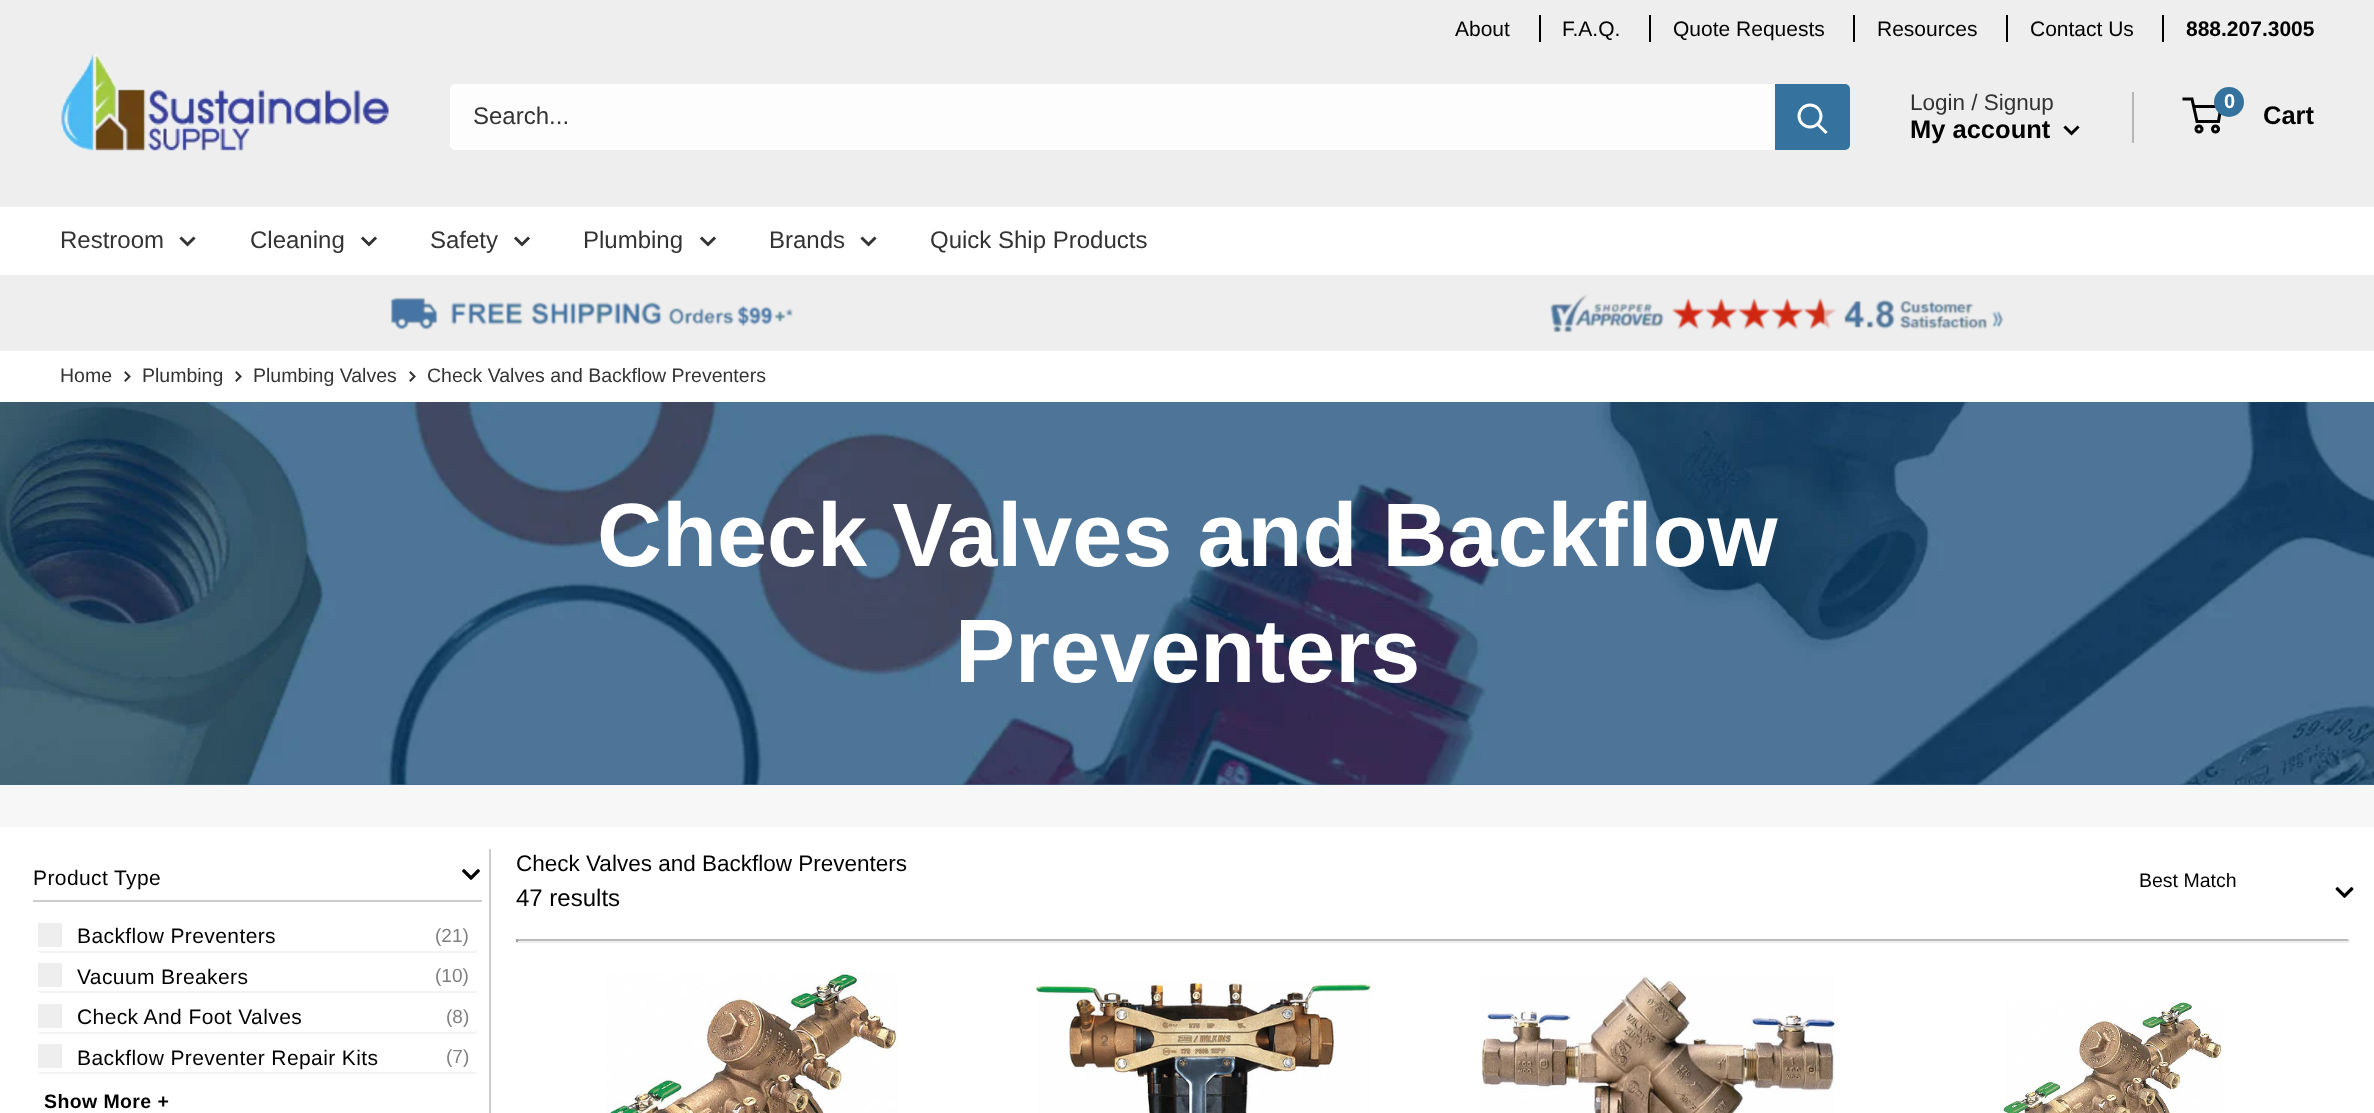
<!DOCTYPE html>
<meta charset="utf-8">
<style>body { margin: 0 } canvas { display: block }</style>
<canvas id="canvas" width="2374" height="1113"></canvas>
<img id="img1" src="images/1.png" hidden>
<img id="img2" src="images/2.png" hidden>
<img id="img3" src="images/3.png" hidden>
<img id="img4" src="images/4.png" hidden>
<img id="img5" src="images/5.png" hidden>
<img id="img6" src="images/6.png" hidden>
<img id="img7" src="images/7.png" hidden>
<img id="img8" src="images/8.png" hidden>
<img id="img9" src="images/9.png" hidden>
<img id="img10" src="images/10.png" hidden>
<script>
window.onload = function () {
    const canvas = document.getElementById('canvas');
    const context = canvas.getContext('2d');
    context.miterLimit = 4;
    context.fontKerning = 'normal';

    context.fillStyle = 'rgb(255, 255, 255)';
    context.fillRect(0, 0, 2374, 1113);
    context.fillStyle = 'rgb(238, 238, 238)';
    context.fillRect(0, 0, 2374, 207);
    context.fillStyle = 'rgb(0, 0, 0)';
    context.fillRect(1539, 15, 2, 27);
    context.fillRect(1649, 15, 2, 27);
    context.fillRect(1853, 15, 2, 27);
    context.fillRect(2006, 15, 2, 27);
    context.fillRect(2162, 15, 2, 27);
    context.drawImage(document.getElementById('img1'), 61, 54, 328, 97);
    context.fillStyle = 'rgb(253, 253, 253)';
    context.beginPath();
    context.roundRect(450, 84, 1400, 66, 5);
    context.fill();
    context.fillStyle = 'rgb(53, 115, 158)';
    context.beginPath();
    context.roundRect(1775, 84, 75, 66, [0, 5, 5, 0]);
    context.fill();
    context.beginPath();
    context.moveTo(1825.5, 132);
    context.lineTo(1818, 124.5);
    context.strokeStyle = 'rgb(253, 253, 253)';
    context.lineWidth = 3;
    context.lineCap = 'square';
    context.stroke();
    context.beginPath();
    context.arc(1810, 116, 11, 0, 2 * Math.PI);
    context.stroke();
    context.fillStyle = 'rgb(182, 182, 182)';
    context.fillRect(2132, 92, 2, 51);
    context.beginPath();
    context.moveTo(2077.5, 127.5);
    context.lineTo(2071.5, 133.5);
    context.lineTo(2065.5, 127.5);
    context.strokeStyle = 'rgb(0, 0, 0)';
    context.stroke();
    context.beginPath();
    context.arc(2199, 129, 3, 0, 2 * Math.PI);
    context.stroke();
    context.beginPath();
    context.arc(2215.5, 129, 3, 0, 2 * Math.PI);
    context.stroke();
    context.beginPath();
    context.moveTo(2193.5, 106.5);
    context.lineTo(2221, 106.5);
    context.lineTo(2218.5, 121.5);
    context.lineTo(2197, 121.5);
    context.lineTo(2192, 99);
    context.lineTo(2182.5, 99);
    context.lineCap = 'butt';
    context.stroke();
    context.fillStyle = 'rgb(53, 115, 158)';
    context.beginPath();
    context.arc(2229, 102, 15, 0, 2 * Math.PI);
    context.fill();
    context.beginPath();
    context.moveTo(193.5, 238.5);
    context.lineTo(187.5, 244.5);
    context.lineTo(181.5, 238.5);
    context.strokeStyle = 'rgb(51, 51, 51)';
    context.lineCap = 'square';
    context.stroke();
    context.beginPath();
    context.moveTo(375, 238.5);
    context.lineTo(369, 244.5);
    context.lineTo(363, 238.5);
    context.stroke();
    context.beginPath();
    context.moveTo(528, 238.5);
    context.lineTo(522, 244.5);
    context.lineTo(516, 238.5);
    context.stroke();
    context.beginPath();
    context.moveTo(714, 238.5);
    context.lineTo(708, 244.5);
    context.lineTo(702, 238.5);
    context.stroke();
    context.beginPath();
    context.moveTo(874.5, 238.5);
    context.lineTo(868.5, 244.5);
    context.lineTo(862.5, 238.5);
    context.stroke();
    context.fillStyle = 'rgb(238, 238, 238)';
    context.fillRect(0, 275, 2374, 76);
    context.drawImage(document.getElementById('img2'), 390, 297, 403, 33);
    context.drawImage(document.getElementById('img3'), 1550, 294, 454, 39);
    context.beginPath();
    context.moveTo(125.5, 372.5);
    context.lineTo(129.5, 376.5);
    context.lineTo(125.5, 380.5);
    context.lineWidth = 2;
    context.stroke();
    context.beginPath();
    context.moveTo(236.5, 372.5);
    context.lineTo(240.5, 376.5);
    context.lineTo(236.5, 380.5);
    context.stroke();
    context.beginPath();
    context.moveTo(410.5, 372.5);
    context.lineTo(414.5, 376.5);
    context.lineTo(410.5, 380.5);
    context.stroke();
    context.fillStyle = 'rgb(68, 107, 139)';
    context.fillRect(0, 784, 2374, 1);
    context.drawImage(document.getElementById('img4'), 0, 402, 2374, 383);
    context.fillStyle = 'rgb(247, 247, 247)';
    context.fillRect(0, 785, 2374, 42);
    context.fillStyle = 'rgb(204, 204, 204)';
    context.fillRect(489, 849, 2, 264);
    context.fillRect(33, 900, 449, 2);
    context.drawImage(document.getElementById('img5'), 462, 869, 18, 11);
    context.fillStyle = 'rgb(243, 243, 243)';
    context.beginPath();
    context.moveTo(38, 950);
    context.bezierCurveTo(38, 952, 39, 953, 41, 953);
    context.lineTo(474, 953);
    context.bezierCurveTo(476, 953, 477, 952, 477, 950);
    context.lineTo(477, 948);
    context.bezierCurveTo(477, 949, 476, 950, 475, 951);
    context.lineTo(40, 951);
    context.closePath();
    context.fill();
    context.fillStyle = 'rgb(238, 238, 238)';
    context.fillRect(38, 923, 24, 24);
    context.fillStyle = 'rgb(243, 243, 243)';
    context.beginPath();
    context.moveTo(38, 990);
    context.bezierCurveTo(38, 992, 39, 993, 41, 993);
    context.lineTo(474, 993);
    context.bezierCurveTo(476, 993, 477, 992, 477, 990);
    context.lineTo(477, 988);
    context.bezierCurveTo(477, 990, 476, 991, 475, 991);
    context.lineTo(40, 991);
    context.closePath();
    context.fill();
    context.fillStyle = 'rgb(238, 238, 238)';
    context.fillRect(38, 963, 24, 24);
    context.fillStyle = 'rgb(243, 243, 243)';
    context.beginPath();
    context.moveTo(38, 1031);
    context.bezierCurveTo(38, 1033, 39, 1034, 41, 1034);
    context.lineTo(474, 1034);
    context.bezierCurveTo(476, 1034, 477, 1033, 477, 1031);
    context.lineTo(477, 1029);
    context.bezierCurveTo(477, 1030, 476, 1031, 475, 1032);
    context.lineTo(40, 1032);
    context.closePath();
    context.fill();
    context.fillStyle = 'rgb(238, 238, 238)';
    context.fillRect(38, 1004, 24, 24);
    context.fillStyle = 'rgb(243, 243, 243)';
    context.beginPath();
    context.moveTo(38, 1071);
    context.bezierCurveTo(38, 1073, 39, 1074, 41, 1074);
    context.lineTo(474, 1074);
    context.bezierCurveTo(476, 1074, 477, 1073, 477, 1071);
    context.lineTo(477, 1070);
    context.bezierCurveTo(477, 1071, 476, 1072, 475, 1072);
    context.lineTo(40, 1072);
    context.closePath();
    context.fill();
    context.fillStyle = 'rgb(238, 238, 238)';
    context.fillRect(38, 1044, 24, 24);
    context.drawImage(document.getElementById('img6'), 2335, 887, 19, 11);
    context.fillStyle = 'rgb(187, 187, 187)';
    context.fillRect(516, 939, 1833, 2);
    context.fillStyle = 'rgb(238, 238, 238)';
    context.fillRect(2348, 939, 2, 3);
    context.fillRect(516, 941, 1833, 2);
    context.fillStyle = 'rgb(159, 159, 159)';
    context.fillRect(516, 939, 2, 3);
    context.drawImage(document.getElementById('img7'), 606, 972, 293, 141);
    context.drawImage(document.getElementById('img8'), 1035, 979, 338, 134);
    context.drawImage(document.getElementById('img9'), 1481, 975, 354, 138);
    context.drawImage(document.getElementById('img10'), 2003, 1001, 220, 112);
    context.font = '21px Liberation Sans';
    context.fillStyle = 'rgb(0, 0, 0)';
    context.fillText('About', 1455, 36);
    context.fillText('F.A.Q.', 1562, 36);
    context.fillText('Quote Requests', 1673, 36);
    context.fillText('Resources', 1877, 36);
    context.fillText('Contact Us', 2030, 36);
    context.font = 'bold 21px Liberation Sans';
    context.fillText('888.207.3005', 2186, 36);
    context.font = '24px Liberation Sans';
    context.fillStyle = 'rgb(51, 51, 51)';
    context.fillText('Search...', 473, 124);
    context.font = '22.5px Liberation Sans';
    context.fillText('Login / Signup', 1910, 110);
    context.font = 'bold 25.5px Liberation Sans';
    context.fillStyle = 'rgb(0, 0, 0)';
    context.fillText('My account', 1910, 138);
    context.font = 'bold 20px Liberation Sans';
    context.fillStyle = 'rgb(255, 255, 255)';
    context.fillText('0', 2224, 108);
    context.font = 'bold 25.5px Liberation Sans';
    context.fillStyle = 'rgb(0, 0, 0)';
    context.fillText('Cart', 2263, 124);
    context.font = '24px Liberation Sans';
    context.fillStyle = 'rgb(51, 51, 51)';
    context.fillText('Restroom', 60, 248);
    context.fillText('Cleaning', 250, 248);
    context.fillText('Safety', 430, 248);
    context.fillText('Plumbing', 583, 248);
    context.fillText('Brands', 769, 248);
    context.fillText('Quick Ship Products', 930, 248);
    context.font = '19.5px Liberation Sans';
    context.fillText('Home', 60, 382);
    context.fillText('Plumbing', 142, 382);
    context.fillText('Plumbing Valves', 253, 382);
    context.fillText('Check Valves and Backflow Preventers', 427, 382);
    context.font = 'bold 90px Liberation Sans';
    context.fillStyle = 'rgb(255, 255, 255)';
    context.fillText('Check Valves and Backflow', 597, 566);
    context.fillText('Preventers', 955, 682);
    context.letterSpacing = '0.4px';
    context.font = '21px Liberation Sans';
    context.fillStyle = 'rgb(0, 0, 0)';
    context.fillText('Product Type', 33, 885);
    context.fillText('Backflow Preventers', 77, 943);
    context.letterSpacing = '0px';
    context.font = '19px Liberation Sans';
    context.fillStyle = 'rgb(128, 128, 128)';
    context.fillText('(21)', 435, 942);
    context.letterSpacing = '0.4px';
    context.font = '21px Liberation Sans';
    context.fillStyle = 'rgb(0, 0, 0)';
    context.fillText('Vacuum Breakers', 77, 984);
    context.letterSpacing = '0px';
    context.font = '19px Liberation Sans';
    context.fillStyle = 'rgb(128, 128, 128)';
    context.fillText('(10)', 435, 982);
    context.letterSpacing = '0.4px';
    context.font = '21px Liberation Sans';
    context.fillStyle = 'rgb(0, 0, 0)';
    context.fillText('Check And Foot Valves', 77, 1024);
    context.letterSpacing = '0px';
    context.font = '19px Liberation Sans';
    context.fillStyle = 'rgb(128, 128, 128)';
    context.fillText('(8)', 446, 1023);
    context.letterSpacing = '0.4px';
    context.font = '21px Liberation Sans';
    context.fillStyle = 'rgb(0, 0, 0)';
    context.fillText('Backflow Preventer Repair Kits', 77, 1065);
    context.letterSpacing = '0px';
    context.font = '19px Liberation Sans';
    context.fillStyle = 'rgb(128, 128, 128)';
    context.fillText('(7)', 446, 1063);
    context.letterSpacing = '0.4px';
    context.font = 'bold 19.5px Liberation Sans';
    context.fillStyle = 'rgb(0, 0, 0)';
    context.fillText('Show More +', 44, 1108);
    context.letterSpacing = '0px';
    context.font = '22.5px Liberation Sans';
    context.fillText('Check Valves and Backflow Preventers', 516, 871);
    context.font = '24px Liberation Sans';
    context.fillText('47 results', 516, 906);
    context.font = '19.5px Liberation Sans';
    context.fillText('Best Match', 2139, 887);
};
</script>
